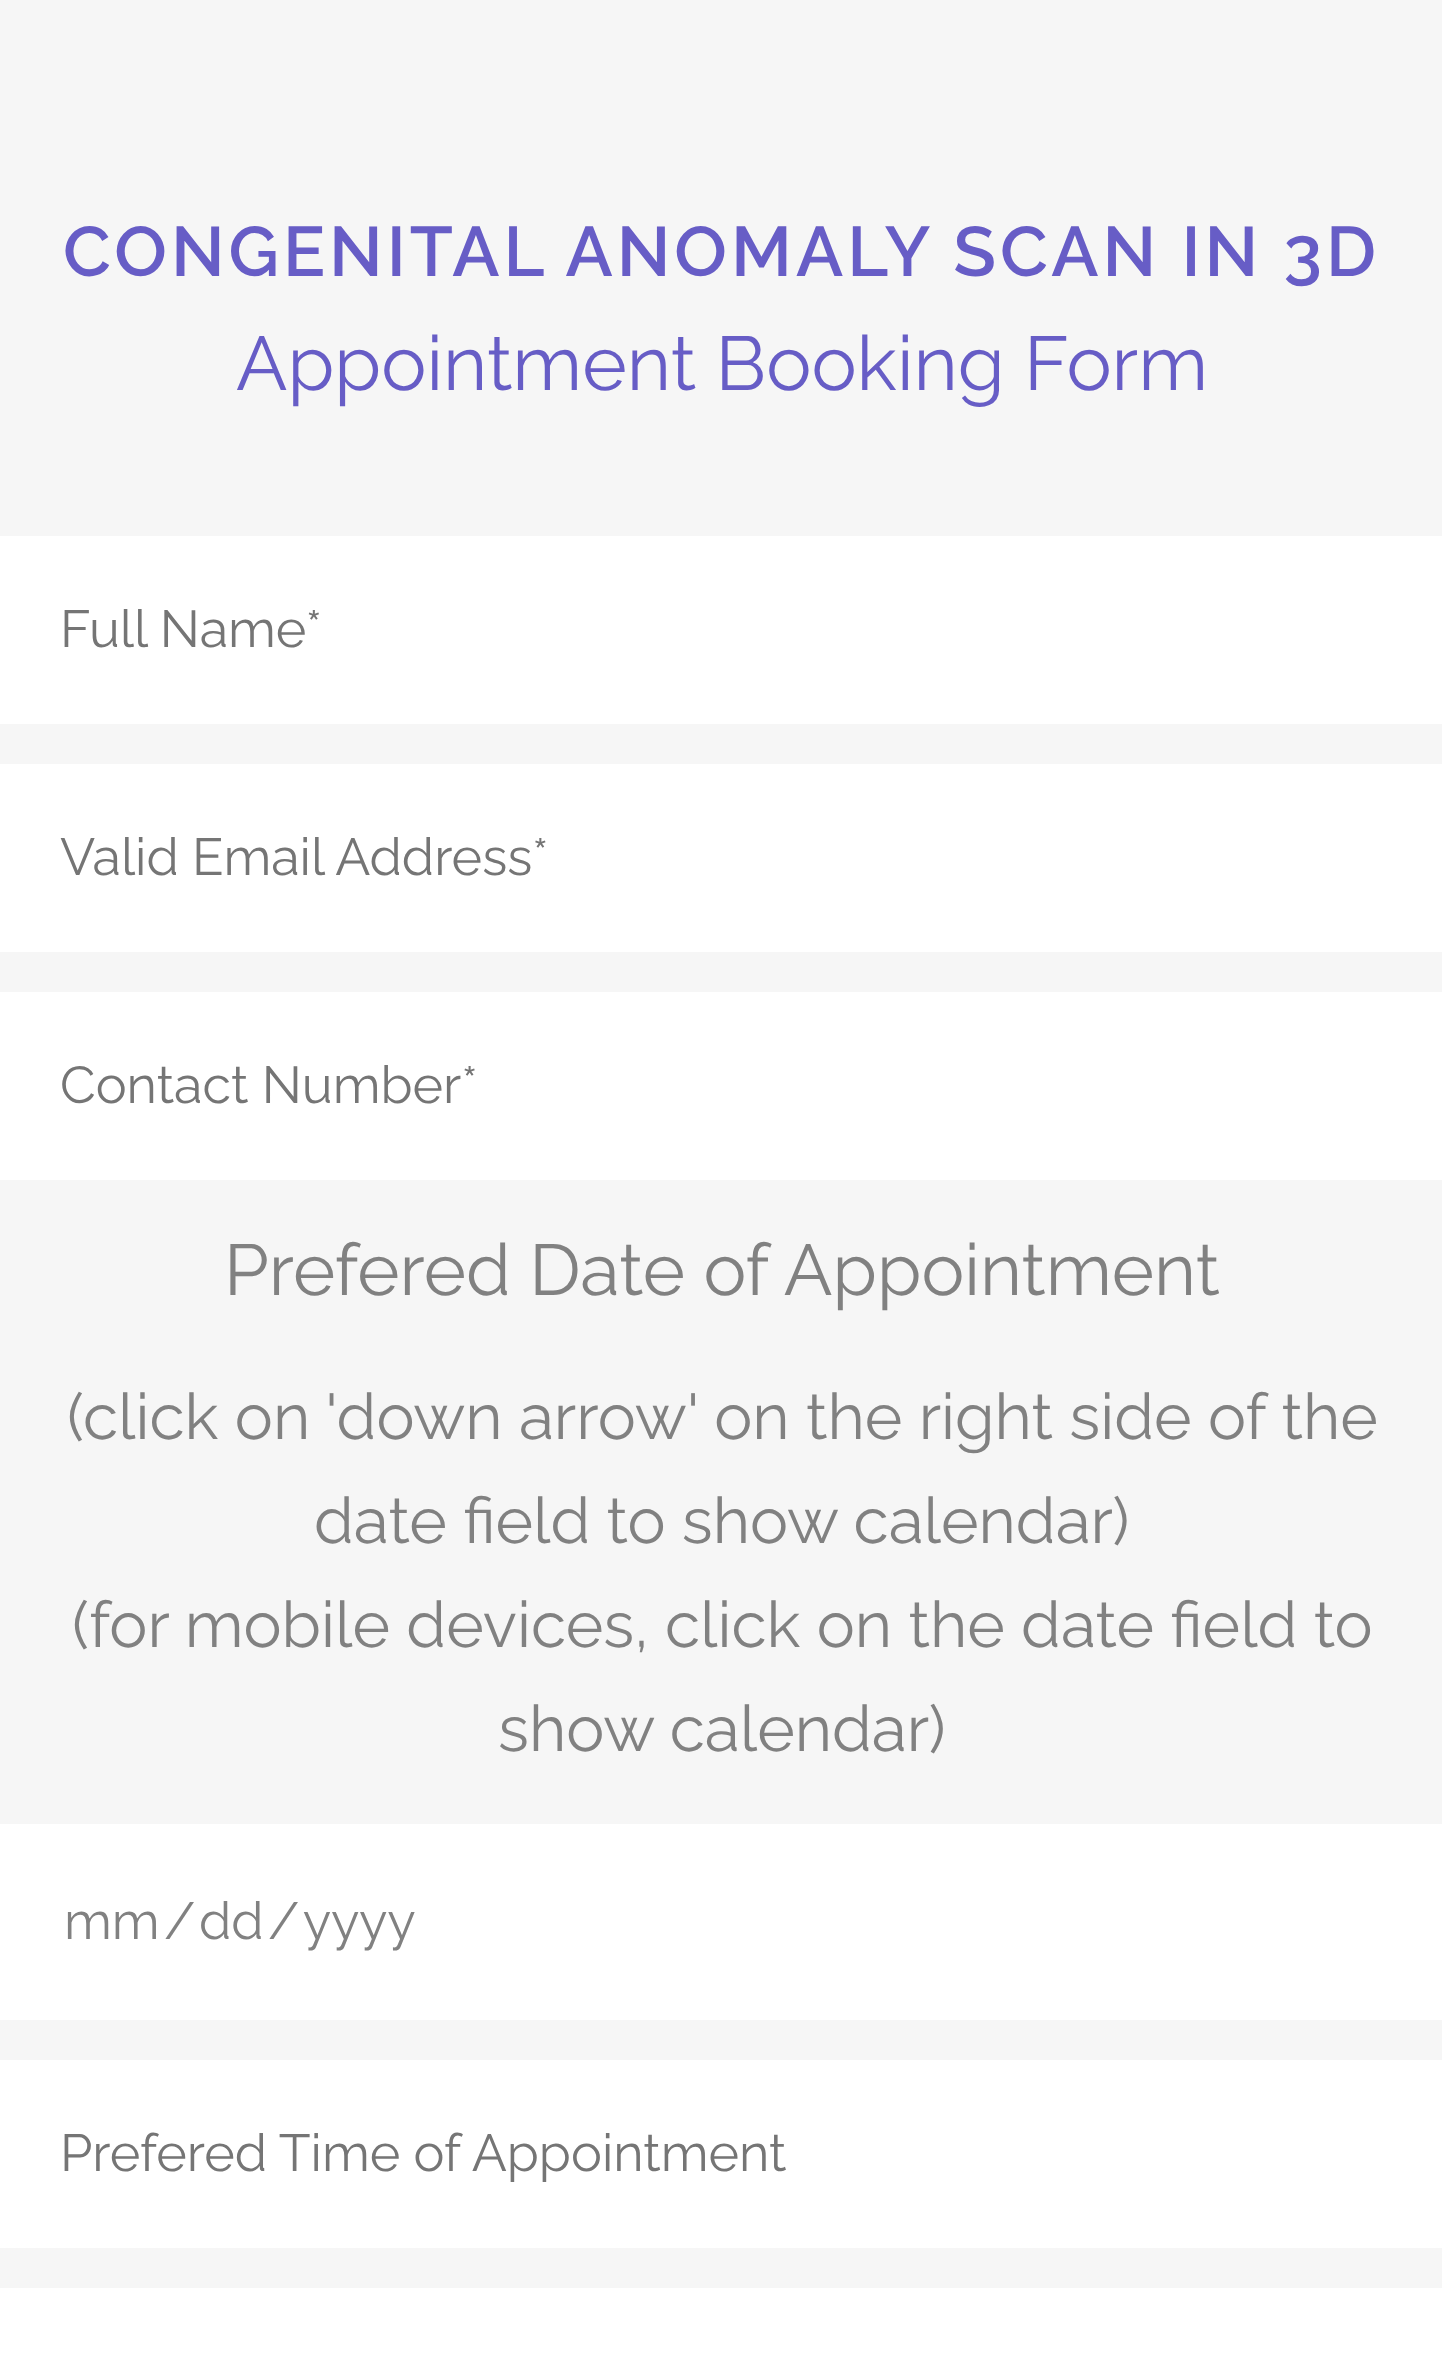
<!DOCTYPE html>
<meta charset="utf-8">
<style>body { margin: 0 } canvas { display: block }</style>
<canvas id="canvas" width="1442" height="2368"></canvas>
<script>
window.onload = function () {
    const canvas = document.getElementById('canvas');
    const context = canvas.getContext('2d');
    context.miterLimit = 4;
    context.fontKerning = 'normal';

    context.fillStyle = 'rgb(246, 246, 246)';
    context.fillRect(0, 0, 1442, 2368);
    context.fillStyle = 'rgb(255, 255, 255)';
    context.fillRect(0, 536, 1442, 188);
    context.fillRect(0, 764, 1442, 188);
    context.fillRect(0, 992, 1442, 188);
    context.fillRect(0, 1824, 1442, 196);
    context.fillRect(0, 2060, 1442, 188);
    context.fillRect(0, 2288, 1442, 80);
    context.letterSpacing = '4px';
    context.font = '600 70px Raleway';
    context.fillStyle = 'rgb(103, 93, 198)';
    context.fillText('CONGENITAL ANOMALY SCAN IN 3D', 63, 276);
    context.letterSpacing = '0px';
    context.font = '76px Raleway';
    context.fillText('Appointment Booking Form', 236, 390);
    context.font = '52px Raleway';
    context.fillStyle = 'rgb(117, 117, 117)';
    context.fillText('Full Name*', 60, 647);
    context.fillText('Valid Email Address*', 60, 875);
    context.fillText('Contact Number*', 60, 1103);
    context.font = '72px Raleway';
    context.fillStyle = 'rgb(129, 129, 129)';
    context.fillText('Prefered Date of Appointment', 224, 1295);
    context.font = '64px Raleway';
    context.fillText('(click on \'down arrow\' on the right side of the', 67, 1439);
    context.fillText('date field to show calendar)', 314, 1543);
    context.fillText('(for mobile devices, click on the date field to', 72, 1647);
    context.fillText('show calendar)', 498, 1751);
    context.font = '52px Raleway';
    context.fillText('mm', 64, 1939);
    context.fillText('/', 164, 1939);
    context.fillText('dd', 199, 1939);
    context.fillText('/', 268, 1939);
    context.fillText('yyyy', 303, 1939);
    context.fillStyle = 'rgb(117, 117, 117)';
    context.fillText('Prefered Time of Appointment', 60, 2171);
};
</script>
